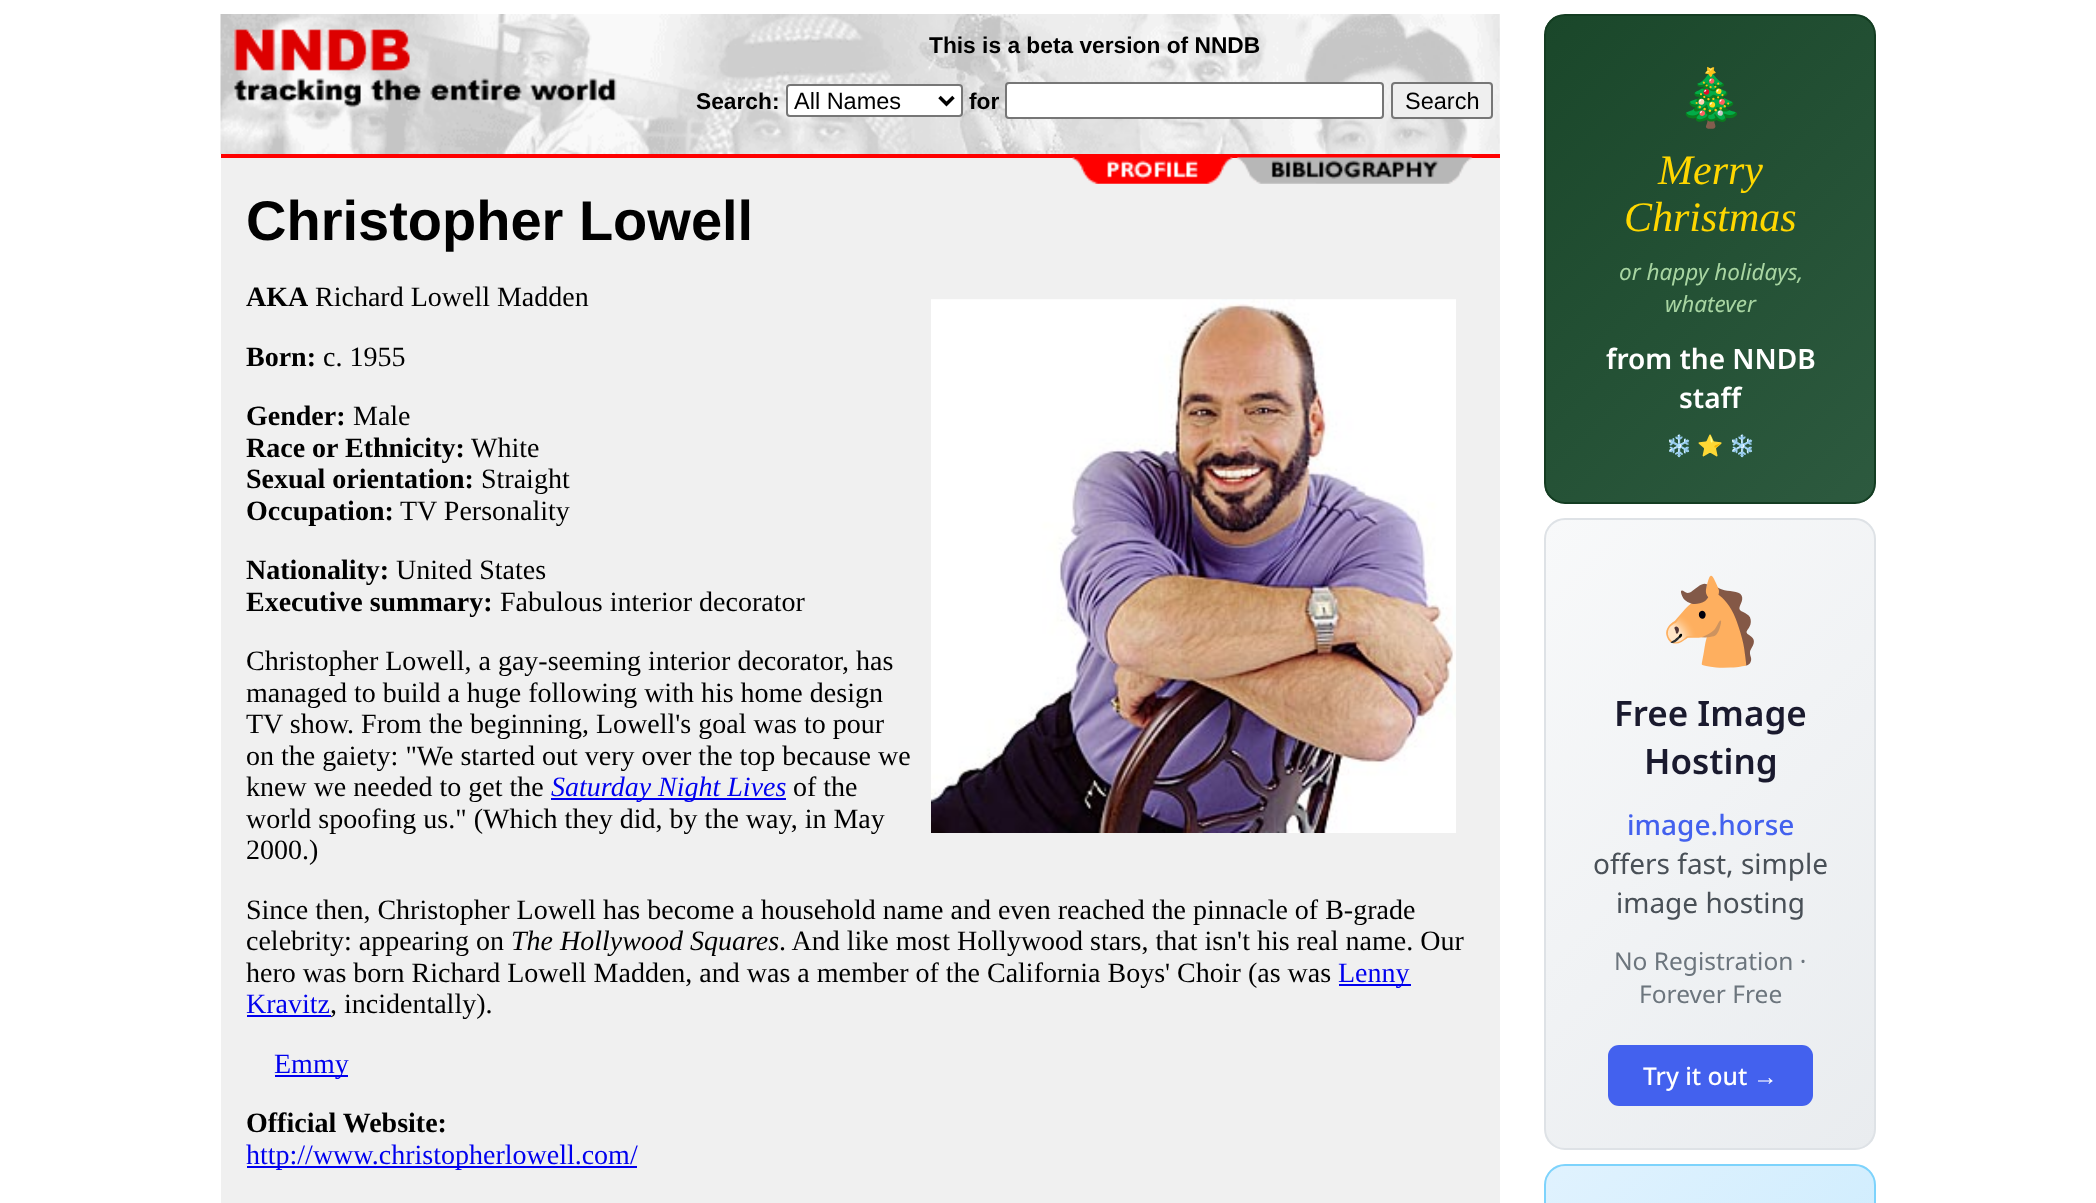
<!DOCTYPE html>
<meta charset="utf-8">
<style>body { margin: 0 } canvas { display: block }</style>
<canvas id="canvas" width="2096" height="1203"></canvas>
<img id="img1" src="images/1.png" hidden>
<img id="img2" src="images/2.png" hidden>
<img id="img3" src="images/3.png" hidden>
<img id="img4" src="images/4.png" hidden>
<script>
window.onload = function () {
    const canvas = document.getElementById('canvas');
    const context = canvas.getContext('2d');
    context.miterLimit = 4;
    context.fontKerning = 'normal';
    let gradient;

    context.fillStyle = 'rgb(255, 255, 255)';
    context.fillRect(0, 0, 2096, 1203);
    context.drawImage(document.getElementById('img1'), 220, 14, 1280, 140);
    context.drawImage(document.getElementById('img2'), 234, 29, 383, 79);
    context.beginPath();
    context.roundRect(787, 85, 175, 31, 3);
    context.fill();
    context.strokeStyle = 'rgb(118, 118, 118)';
    context.lineWidth = 2;
    context.stroke();
    context.beginPath();
    context.moveTo(939.5, 97);
    context.lineTo(946.5, 104);
    context.lineTo(953.5, 97);
    context.strokeStyle = 'rgb(0, 0, 0)';
    context.lineWidth = 3.5;
    context.stroke();
    context.beginPath();
    context.roundRect(1006, 83, 377, 35, 3);
    context.fill();
    context.strokeStyle = 'rgb(118, 118, 118)';
    context.lineWidth = 2;
    context.stroke();
    context.fillStyle = 'rgb(239, 239, 239)';
    context.beginPath();
    context.roundRect(1392, 83, 100, 35, 3);
    context.fill();
    context.stroke();
    context.fillStyle = 'rgb(255, 0, 0)';
    context.fillRect(221, 154, 1279, 4);
    context.fillStyle = 'rgb(240, 240, 240)';
    context.fillRect(221, 158, 1279, 1045);
    context.drawImage(document.getElementById('img3'), 1072, 157, 401, 27);
    context.drawImage(document.getElementById('img4'), 931, 299, 525, 534);
    context.fillStyle = 'rgb(0, 0, 238)';
    context.fillRect(551, 798, 235, 2);
    context.fillRect(1339, 984, 72, 2);
    context.fillRect(247, 1015, 84, 2);
    context.fillRect(275, 1075, 73, 2);
    context.fillRect(247, 1166, 390, 2);
    context.save();
    context.beginPath();
    context.roundRect(1544, 14, 332, 490, 21);
    context.clip();
    gradient = context.createLinearGradient(1506, 55, 1914, 463);
    gradient.addColorStop(0, 'rgb(26, 71, 42)');
    gradient.addColorStop(1, 'rgb(45, 90, 63)');
    context.fillStyle = gradient;
    context.fillRect(1545, 16, 329, 486);
    context.restore();
    context.beginPath();
    context.roundRect(1545, 15, 330, 488, 20);
    context.strokeStyle = 'rgb(20, 61, 34)';
    context.stroke();
    context.save();
    context.beginPath();
    context.roundRect(1544, 518, 332, 632, 21);
    context.clip();
    gradient = context.createLinearGradient(1470, 595, 1949, 1073);
    gradient.addColorStop(0, 'rgb(248, 249, 250)');
    gradient.addColorStop(1, 'rgb(233, 236, 239)');
    context.fillStyle = gradient;
    context.fillRect(1545, 520, 329, 628);
    context.restore();
    context.beginPath();
    context.roundRect(1545, 519, 330, 630, 20);
    context.strokeStyle = 'rgb(222, 226, 230)';
    context.stroke();
    context.fillStyle = 'rgb(67, 97, 238)';
    context.beginPath();
    context.roundRect(1608, 1045, 205, 61, 11);
    context.fill();
    context.save();
    context.beginPath();
    context.roundRect(1544, 1164, 332, 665, 21);
    context.clip();
    gradient = context.createLinearGradient(1462, 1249, 1957, 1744);
    gradient.addColorStop(0, 'rgb(224, 242, 254)');
    gradient.addColorStop(1, 'rgb(186, 230, 253)');
    context.fillStyle = gradient;
    context.fillRect(1545, 1166, 329, 37);
    context.restore();
    context.beginPath();
    context.roundRect(1545, 1165, 330, 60, 20);
    context.strokeStyle = 'rgb(125, 211, 252)';
    context.stroke();
    context.font = 'bold 22.75px Liberation Sans';
    context.fillStyle = 'rgb(0, 0, 0)';
    context.fillText('This is a beta version of NNDB', 929, 53);
    context.fillText('Search:', 696, 109);
    context.font = '23.5px Liberation Sans';
    context.fillText('All Names', 794, 109);
    context.font = 'bold 22.75px Liberation Sans';
    context.fillText('for', 969, 109);
    context.font = '23.5px Liberation Sans';
    context.fillText('Search', 1405, 109);
    context.font = 'bold 56px Liberation Sans';
    context.fillText('Christopher Lowell', 246, 240);
    context.font = 'bold 28px Liberation Serif';
    context.fillText('AKA', 246, 306);
    context.font = '28px Liberation Serif';
    context.fillText('Richard Lowell Madden', 315, 306);
    context.font = 'bold 28px Liberation Serif';
    context.fillText('Born:', 246, 366);
    context.font = '28px Liberation Serif';
    context.fillText('c. 1955', 323, 366);
    context.font = 'bold 28px Liberation Serif';
    context.fillText('Gender:', 246, 425);
    context.font = '28px Liberation Serif';
    context.fillText('Male', 353, 425);
    context.font = 'bold 28px Liberation Serif';
    context.fillText('Race or Ethnicity:', 246, 457);
    context.font = '28px Liberation Serif';
    context.fillText('White', 471, 457);
    context.font = 'bold 28px Liberation Serif';
    context.fillText('Sexual orientation:', 246, 488);
    context.font = '28px Liberation Serif';
    context.fillText('Straight', 481, 488);
    context.font = 'bold 28px Liberation Serif';
    context.fillText('Occupation:', 246, 520);
    context.font = '28px Liberation Serif';
    context.fillText('TV Personality', 400, 520);
    context.font = 'bold 28px Liberation Serif';
    context.fillText('Nationality:', 246, 579);
    context.font = '28px Liberation Serif';
    context.fillText('United States', 396, 579);
    context.font = 'bold 28px Liberation Serif';
    context.fillText('Executive summary:', 246, 611);
    context.font = '28px Liberation Serif';
    context.fillText('Fabulous interior decorator', 500, 611);
    context.fillText('Christopher Lowell, a gay-seeming interior decorator, has', 246, 670);
    context.fillText('managed to build a huge following with his home design', 246, 702);
    context.fillText('TV show. From the beginning, Lowell\'s goal was to pour', 246, 733);
    context.fillText('on the gaiety: "We started out very over the top because we', 246, 765);
    context.fillText('knew we needed to get the', 246, 796);
    context.font = 'italic 28px Liberation Serif';
    context.fillStyle = 'rgb(0, 0, 238)';
    context.fillText('Saturday Night Lives', 551, 796);
    context.font = '28px Liberation Serif';
    context.fillStyle = 'rgb(0, 0, 0)';
    context.fillText('of the', 793, 796);
    context.fillText('world spoofing us." (Which they did, by the way, in May', 246, 828);
    context.fillText('2000.)', 246, 859);
    context.fillText('Since then, Christopher Lowell has become a household name and even reached the pinnacle of B-grade', 246, 919);
    context.fillText('celebrity: appearing on', 246, 950);
    context.font = 'italic 28px Liberation Serif';
    context.fillText('The Hollywood Squares', 511, 950);
    context.font = '28px Liberation Serif';
    context.fillText('. And like most Hollywood stars, that isn\'t his real name. Our', 779, 950);
    context.fillText('hero was born Richard Lowell Madden, and was a member of the California Boys\' Choir (as was', 246, 982);
    context.fillStyle = 'rgb(0, 0, 238)';
    context.fillText('Lenny', 1338, 982);
    context.fillText('Kravitz', 246, 1013);
    context.fillStyle = 'rgb(0, 0, 0)';
    context.fillText(', incidentally).', 330, 1013);
    context.fillStyle = 'rgb(0, 0, 238)';
    context.fillText('Emmy', 274, 1073);
    context.font = 'bold 28px Liberation Serif';
    context.fillStyle = 'rgb(0, 0, 0)';
    context.fillText('Official Website:', 246, 1132);
    context.font = '28px Liberation Serif';
    context.fillStyle = 'rgb(0, 0, 238)';
    context.fillText('http://www.christopherlowell.com/', 246, 1164);
    context.font = '56px Noto Color Emoji';
    context.fillStyle = 'rgb(255, 255, 255)';
    context.fillText('🎄', 1676, 117);
    context.font = 'italic 42px Liberation Serif';
    context.fillStyle = 'rgb(255, 215, 0)';
    context.fillText('Merry', 1658, 184);
    context.fillText('Christmas', 1624, 231);
    context.font = 'italic 22.5px Noto Sans';
    context.fillStyle = 'rgb(168, 213, 162)';
    context.fillText('or happy holidays,', 1619, 280);
    context.fillText('whatever', 1665, 312);
    context.font = '600 28px Noto Sans';
    context.fillStyle = 'rgb(255, 255, 255)';
    context.fillText('from the NNDB', 1606, 369);
    context.fillText('staff', 1679, 408);
    context.font = '21px Noto Color Emoji';
    context.fillText('❄️', 1666, 453);
    context.fillText('⭐', 1697, 453);
    context.fillText('❄️', 1729, 453);
    context.font = '84px Noto Color Emoji';
    context.fillStyle = 'rgb(0, 0, 238)';
    context.fillText('🐴', 1658, 651);
    context.font = '600 35px Noto Sans';
    context.fillStyle = 'rgb(26, 26, 46)';
    context.fillText('Free Image', 1614, 726);
    context.fillText('Hosting', 1644, 774);
    context.font = '500 28px Noto Sans';
    context.fillStyle = 'rgb(67, 97, 238)';
    context.fillText('image.horse', 1627, 835);
    context.font = '28px Noto Sans';
    context.fillStyle = 'rgb(73, 80, 87)';
    context.fillText('offers fast, simple', 1593, 874);
    context.fillText('image hosting', 1616, 913);
    context.font = '24.5px Noto Sans';
    context.fillStyle = 'rgb(108, 117, 125)';
    context.fillText('No Registration ·', 1614, 970);
    context.fillText('Forever Free', 1639, 1003);
    context.font = '500 24.5px Noto Sans';
    context.fillStyle = 'rgb(255, 255, 255)';
    context.fillText('Try it out', 1643, 1085);
    context.font = '24.5px Liberation Sans';
    context.fillText('→', 1753, 1085);
};
</script>
